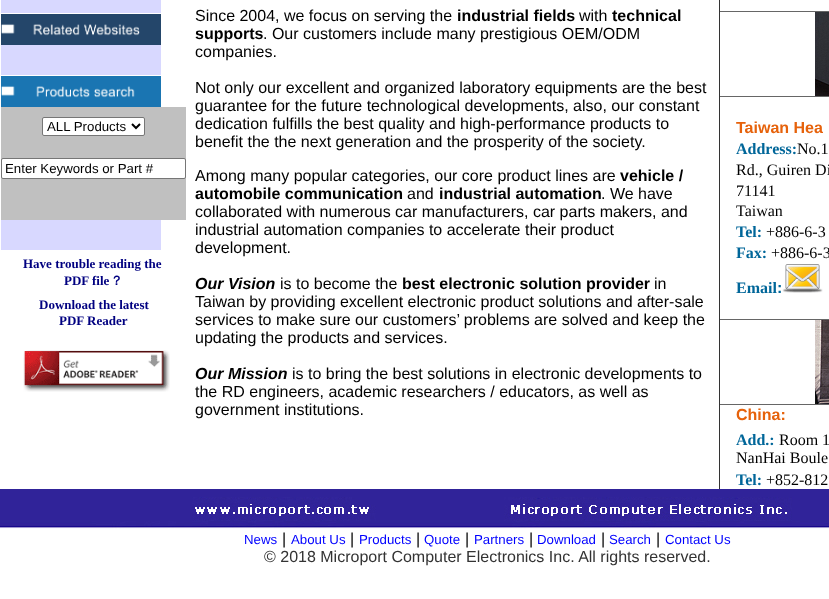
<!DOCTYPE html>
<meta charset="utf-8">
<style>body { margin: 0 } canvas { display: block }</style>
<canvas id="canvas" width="829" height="599"></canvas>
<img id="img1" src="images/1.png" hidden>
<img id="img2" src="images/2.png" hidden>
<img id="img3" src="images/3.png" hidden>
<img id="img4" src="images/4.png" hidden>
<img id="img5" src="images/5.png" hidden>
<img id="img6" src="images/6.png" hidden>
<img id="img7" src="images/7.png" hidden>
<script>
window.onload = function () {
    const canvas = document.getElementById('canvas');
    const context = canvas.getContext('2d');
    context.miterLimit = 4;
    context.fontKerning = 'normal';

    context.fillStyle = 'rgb(255, 255, 255)';
    context.fillRect(0, 0, 829, 599);
    context.fillStyle = 'rgb(216, 216, 255)';
    context.fillRect(1, 0, 160, 13);
    context.drawImage(document.getElementById('img1'), 1, 14, 160, 31);
    context.fillRect(1, 45, 160, 30);
    context.drawImage(document.getElementById('img2'), 1, 76, 160, 31);
    context.fillStyle = 'rgb(192, 192, 192)';
    context.fillRect(1, 107, 185, 113);
    context.fillStyle = 'rgb(255, 255, 255)';
    context.beginPath();
    context.roundRect(42.5, 117.5, 102, 18, 1.5);
    context.fill();
    context.strokeStyle = 'rgb(118, 118, 118)';
    context.stroke();
    context.beginPath();
    context.moveTo(132, 124);
    context.lineTo(136, 128);
    context.lineTo(140, 124);
    context.strokeStyle = 'rgb(0, 0, 0)';
    context.lineWidth = 2;
    context.stroke();
    context.beginPath();
    context.roundRect(1.5, 158.5, 184, 20, 1.5);
    context.fill();
    context.strokeStyle = 'rgb(118, 118, 118)';
    context.lineWidth = 1;
    context.stroke();
    context.fillStyle = 'rgb(216, 216, 255)';
    context.fillRect(1, 220, 160, 30);
    context.drawImage(document.getElementById('img3'), 23, 350, 147, 42);
    context.fillStyle = 'rgb(51, 51, 51)';
    context.fillRect(719, 0, 1, 490);
    context.fillStyle = 'rgb(102, 102, 102)';
    context.fillRect(720, 11, 109, 1);
    context.fillRect(720, 96, 109, 1);
    context.drawImage(document.getElementById('img4'), 815, 12, 14, 84);
    context.drawImage(document.getElementById('img5'), 782, 264, 41, 29);
    context.fillRect(720, 319, 109, 1);
    context.fillRect(720, 404, 109, 1);
    context.drawImage(document.getElementById('img6'), 815, 320, 14, 84);
    context.drawImage(document.getElementById('img7'), 0, 489, 829, 40);
    context.font = '13.25px Liberation Sans';
    context.fillStyle = 'rgb(0, 0, 0)';
    context.fillText('ALL Products', 47, 131);
    context.fillText('Enter Keywords or Part #', 5, 173);
    context.font = 'bold 13px Liberation Serif';
    context.fillStyle = 'rgb(0, 0, 128)';
    context.fillText('Have trouble reading the', 23, 268);
    context.fillText('PDF file', 64, 285);
    context.font = 'bold 13px WenQuanYi Zen Hei';
    context.fillText('？', 110, 285);
    context.font = 'bold 13px Liberation Serif';
    context.fillText('Download the latest', 39, 309);
    context.fillText('PDF Reader', 59, 325);
    context.font = '16px Liberation Sans';
    context.fillStyle = 'rgb(0, 0, 0)';
    context.fillText('Since 2004, we focus on serving the', 195, 21);
    context.font = 'bold 16px Liberation Sans';
    context.fillText('industrial fields', 457, 21);
    context.font = '16px Liberation Sans';
    context.fillText('with', 579, 21);
    context.font = 'bold 16px Liberation Sans';
    context.fillText('technical', 612, 21);
    context.fillText('supports', 195, 39);
    context.font = '16px Liberation Sans';
    context.fillText('. Our customers include many prestigious OEM/ODM', 263, 39);
    context.fillText('companies.', 195, 57);
    context.fillText('Not only our excellent and organized laboratory equipments are the best', 195, 93);
    context.fillText('guarantee for the future technological developments, also, our constant', 195, 111);
    context.fillText('dedication fulfills the best quality and high-performance products to', 195, 129);
    context.fillText('benefit the the next generation and the prosperity of the society.', 195, 147);
    context.fillText('Among many popular categories, our core product lines are', 195, 181);
    context.font = 'bold 16px Liberation Sans';
    context.fillText('vehicle /', 620, 181);
    context.fillText('automobile communication', 195, 199);
    context.font = '16px Liberation Sans';
    context.fillText('and', 407, 199);
    context.font = 'bold 16px Liberation Sans';
    context.fillText('industrial automation', 439, 199);
    context.font = '16px Liberation Sans';
    context.fillText('. We have', 601, 199);
    context.fillText('collaborated with numerous car manufacturers, car parts makers, and', 195, 217);
    context.fillText('industrial automation companies to accelerate their product', 195, 235);
    context.fillText('development.', 195, 253);
    context.font = 'italic bold 16px Liberation Sans';
    context.fillText('Our Vision', 195, 289);
    context.font = '16px Liberation Sans';
    context.fillText('is to become the', 280, 289);
    context.font = 'bold 16px Liberation Sans';
    context.fillText('best electronic solution provider', 402, 289);
    context.font = '16px Liberation Sans';
    context.fillText('in', 654, 289);
    context.fillText('Taiwan by providing excellent electronic product solutions and after-sale', 195, 307);
    context.fillText('services to make sure our customers’ problems are solved and keep the', 195, 325);
    context.fillText('updating the products and services.', 195, 343);
    context.font = 'italic bold 16px Liberation Sans';
    context.fillText('Our Mission', 195, 379);
    context.font = '16px Liberation Sans';
    context.fillText('is to bring the best solutions in electronic developments to', 292, 379);
    context.fillText('the RD engineers, academic researchers / educators, as well as', 195, 397);
    context.fillText('government institutions.', 195, 415);
    context.font = 'bold 16px Liberation Sans';
    context.fillStyle = 'rgb(230, 98, 11)';
    context.fillText('Taiwan Hea', 736, 133);
    context.font = 'bold 16px Liberation Serif';
    context.fillStyle = 'rgb(0, 102, 153)';
    context.fillText('Address:', 736, 154);
    context.font = '16px Liberation Serif';
    context.fillStyle = 'rgb(0, 0, 0)';
    context.fillText('No.1', 797, 154);
    context.fillText('Rd., Guiren Di', 736, 175);
    context.fillText('71141', 736, 196);
    context.fillText('Taiwan', 736, 216);
    context.font = 'bold 16px Liberation Serif';
    context.fillStyle = 'rgb(0, 102, 153)';
    context.fillText('Tel:', 736, 237);
    context.font = '16px Liberation Serif';
    context.fillStyle = 'rgb(0, 0, 0)';
    context.fillText('+886-6-3', 766, 237);
    context.font = 'bold 16px Liberation Serif';
    context.fillStyle = 'rgb(0, 102, 153)';
    context.fillText('Fax:', 736, 258);
    context.font = '16px Liberation Serif';
    context.fillStyle = 'rgb(0, 0, 0)';
    context.fillText('+886-6-3', 771, 258);
    context.font = 'bold 16px Liberation Serif';
    context.fillStyle = 'rgb(0, 102, 153)';
    context.fillText('Email', 736, 293);
    context.font = 'bold 16px Liberation Sans';
    context.fillText(':', 777, 293);
    context.fillStyle = 'rgb(230, 98, 11)';
    context.fillText('China:', 736, 420);
    context.font = 'bold 16px Liberation Serif';
    context.fillStyle = 'rgb(0, 102, 153)';
    context.fillText('Add.:', 736, 445);
    context.font = '16px Liberation Serif';
    context.fillStyle = 'rgb(0, 0, 0)';
    context.fillText('Room 1', 779, 445);
    context.fillText('NanHai Boule', 736, 463);
    context.font = 'bold 16px Liberation Serif';
    context.fillStyle = 'rgb(0, 102, 153)';
    context.fillText('Tel:', 736, 485);
    context.font = '16px Liberation Serif';
    context.fillStyle = 'rgb(0, 0, 0)';
    context.fillText('+852-812', 766, 485);
    context.font = '13.25px Liberation Sans';
    context.fillStyle = 'rgb(0, 0, 255)';
    context.fillText('News', 244, 544);
    context.font = '16px Liberation Sans';
    context.fillStyle = 'rgb(0, 0, 0)';
    context.fillText('|', 282, 544);
    context.font = '13.25px Liberation Sans';
    context.fillStyle = 'rgb(0, 0, 255)';
    context.fillText('About Us', 291, 544);
    context.font = '16px Liberation Sans';
    context.fillStyle = 'rgb(0, 0, 0)';
    context.fillText('|', 350, 544);
    context.font = '13.25px Liberation Sans';
    context.fillStyle = 'rgb(0, 0, 255)';
    context.fillText('Products', 359, 544);
    context.font = '16px Liberation Sans';
    context.fillStyle = 'rgb(0, 0, 0)';
    context.fillText('|', 416, 544);
    context.font = '13.25px Liberation Sans';
    context.fillStyle = 'rgb(0, 0, 255)';
    context.fillText('Quote', 424, 544);
    context.font = '16px Liberation Sans';
    context.fillStyle = 'rgb(0, 0, 0)';
    context.fillText('|', 465, 544);
    context.font = '13.25px Liberation Sans';
    context.fillStyle = 'rgb(0, 0, 255)';
    context.fillText('Partners', 474, 544);
    context.font = '16px Liberation Sans';
    context.fillStyle = 'rgb(0, 0, 0)';
    context.fillText('|', 529, 544);
    context.font = '13.25px Liberation Sans';
    context.fillStyle = 'rgb(0, 0, 255)';
    context.fillText('Download', 537, 544);
    context.font = '16px Liberation Sans';
    context.fillStyle = 'rgb(0, 0, 0)';
    context.fillText('|', 601, 544);
    context.font = '13.25px Liberation Sans';
    context.fillStyle = 'rgb(0, 0, 255)';
    context.fillText('Search', 609, 544);
    context.font = '16px Liberation Sans';
    context.fillStyle = 'rgb(0, 0, 0)';
    context.fillText('|', 656, 544);
    context.font = '13.25px Liberation Sans';
    context.fillStyle = 'rgb(0, 0, 255)';
    context.fillText('Contact Us', 665, 544);
    context.font = '16px Liberation Sans';
    context.fillStyle = 'rgb(51, 51, 51)';
    context.fillText('© 2018 Microport Computer Electronics Inc. All rights reserved.', 264, 562);
};
</script>
